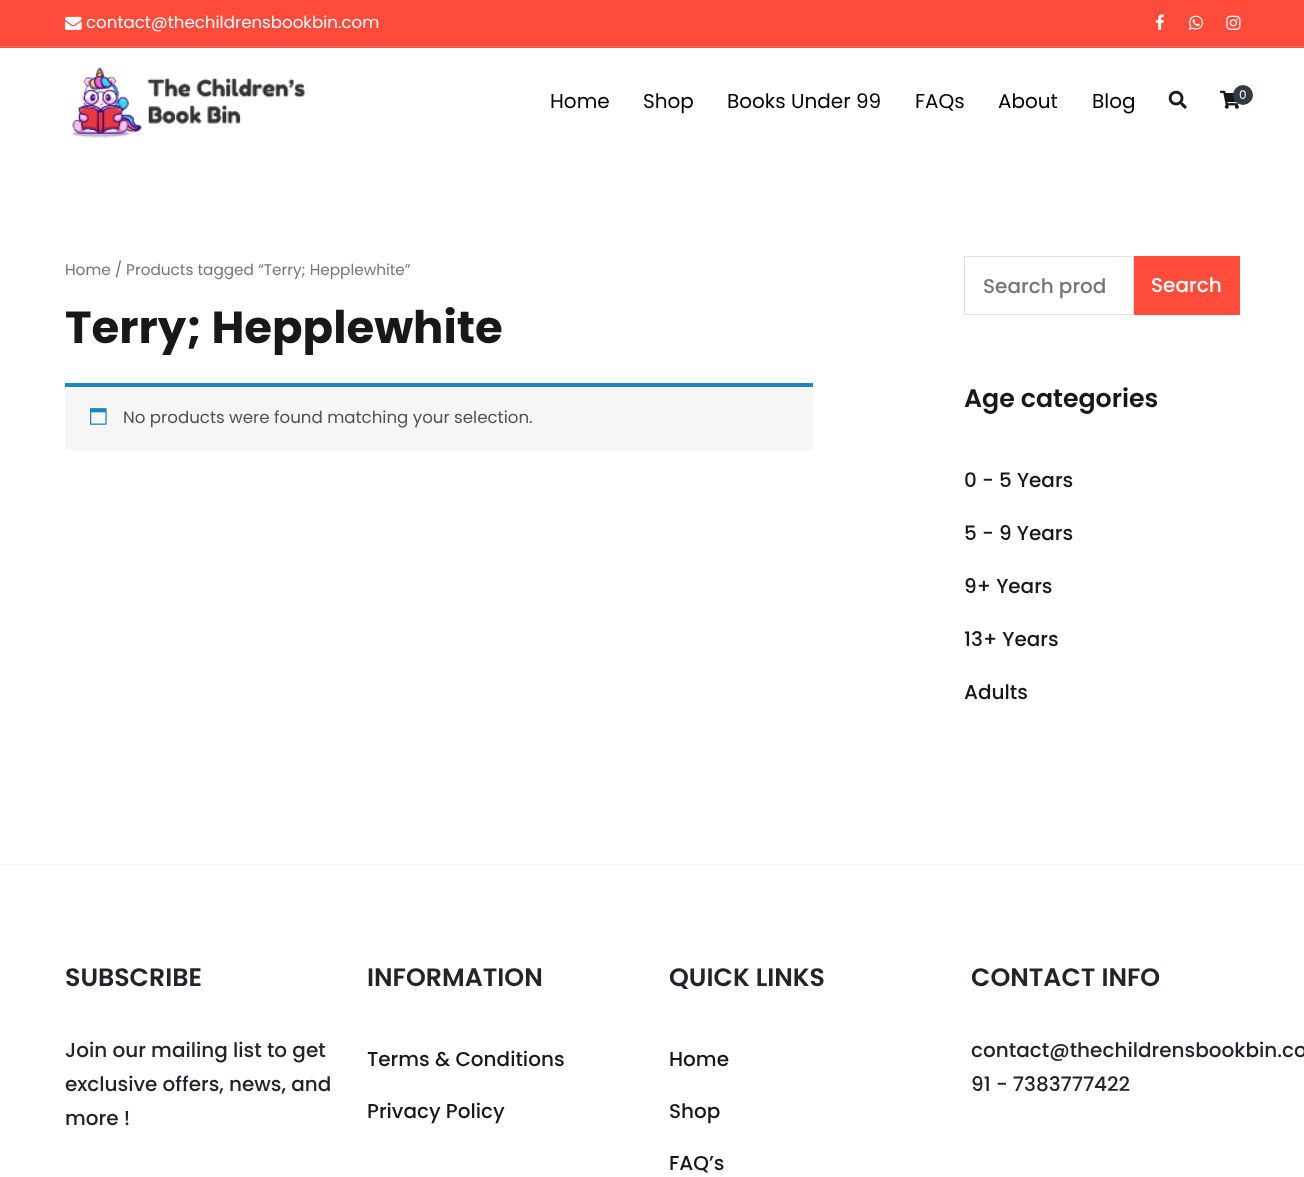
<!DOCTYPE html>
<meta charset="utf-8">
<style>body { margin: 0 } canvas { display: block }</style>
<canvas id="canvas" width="1304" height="1177"></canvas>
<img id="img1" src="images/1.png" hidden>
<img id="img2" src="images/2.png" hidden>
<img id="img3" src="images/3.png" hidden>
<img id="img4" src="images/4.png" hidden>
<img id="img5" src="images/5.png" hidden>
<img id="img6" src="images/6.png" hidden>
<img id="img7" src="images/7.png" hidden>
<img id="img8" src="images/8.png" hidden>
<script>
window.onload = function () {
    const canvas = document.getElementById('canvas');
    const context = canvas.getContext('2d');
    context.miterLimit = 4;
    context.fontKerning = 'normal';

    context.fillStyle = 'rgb(255, 255, 255)';
    context.fillRect(0, 0, 1304, 1177);
    context.fillStyle = 'rgb(255, 75, 59)';
    context.fillRect(0, 0, 1304, 48);
    context.fillStyle = 'rgb(255, 112, 98)';
    context.fillRect(0, 46, 1304, 1);
    context.drawImage(document.getElementById('img1'), 65, 16, 17, 14);
    context.drawImage(document.getElementById('img2'), 1155, 14, 9, 16);
    context.drawImage(document.getElementById('img3'), 1188, 15, 15, 15);
    context.drawImage(document.getElementById('img4'), 1226, 15, 15, 15);
    context.drawImage(document.getElementById('img5'), 71, 67, 235, 71);
    context.drawImage(document.getElementById('img6'), 1168, 90, 19, 19);
    context.drawImage(document.getElementById('img7'), 1220, 90, 19, 19);
    context.fillStyle = 'rgb(52, 58, 64)';
    context.beginPath();
    context.arc(1243, 95, 10, 0, 2 * Math.PI);
    context.fill();
    context.fillStyle = 'rgb(247, 246, 247)';
    context.fillRect(65, 387, 748, 63);
    context.fillStyle = 'rgb(30, 133, 190)';
    context.fillRect(65, 383, 748, 4);
    context.drawImage(document.getElementById('img8'), 90, 408, 17, 17);
    context.strokeStyle = 'rgb(222, 226, 230)';
    context.strokeRect(964.5, 256.5, 169, 58);
    context.fillStyle = 'rgb(255, 76, 59)';
    context.fillRect(1134, 256, 106, 59);
    context.fillStyle = 'rgb(245, 245, 245)';
    context.fillRect(0, 864, 1304, 1);
    context.font = '16.65px Poppins';
    context.fillStyle = 'rgb(255, 255, 255)';
    context.fillText('contact@thechildrensbookbin.com', 86, 28);
    context.font = '20px Poppins';
    context.fillStyle = 'rgb(0, 0, 0)';
    context.fillText('Home', 550, 108);
    context.fillText('Shop', 643, 108);
    context.fillText('Books Under 99', 727, 108);
    context.fillText('FAQs', 915, 108);
    context.fillText('About', 998, 108);
    context.fillText('Blog', 1092, 108);
    context.font = '12px Poppins';
    context.fillStyle = 'rgb(255, 255, 255)';
    context.fillText('0', 1239, 99);
    context.font = '15.3px Poppins';
    context.fillStyle = 'rgb(118, 118, 118)';
    context.fillText('Home / Products tagged “Terry; Hepplewhite”', 65, 275);
    context.font = 'bold 45px Poppins';
    context.fillStyle = 'rgb(22, 24, 26)';
    context.fillText('Terry; Hepplewhite', 65, 343);
    context.font = '16.65px Poppins';
    context.fillStyle = 'rgb(81, 81, 81)';
    context.fillText('No products were found matching your selection.', 123, 423);
    context.font = '500 20px Poppins';
    context.fillStyle = 'rgb(118, 118, 118)';
    context.fillText('Search prod', 983, 293);
    context.fillStyle = 'rgb(255, 255, 255)';
    context.fillText('Search', 1151, 292);
    context.font = '600 25.25px Poppins';
    context.fillStyle = 'rgb(22, 24, 26)';
    context.fillText('Age categories', 964, 407);
    context.font = '500 20px Poppins';
    context.fillText('0 - 5 Years', 964, 487);
    context.fillText('5 - 9 Years', 964, 540);
    context.fillText('9+ Years', 964, 593);
    context.fillText('13+ Years', 964, 646);
    context.fillText('Adults', 964, 699);
    context.font = '600 25.25px Poppins';
    context.fillStyle = 'rgb(33, 37, 41)';
    context.fillText('SUBSCRIBE', 65, 986);
    context.font = '500 20px Poppins';
    context.fillText('Join our mailing list to get', 65, 1057);
    context.fillText('exclusive offers, news, and', 65, 1091);
    context.fillText('more !', 65, 1125);
    context.font = '600 25.25px Poppins';
    context.fillText('INFORMATION', 367, 986);
    context.font = '500 20px Poppins';
    context.fillStyle = 'rgb(22, 24, 26)';
    context.fillText('Terms & Conditions', 367, 1066);
    context.fillText('Privacy Policy', 367, 1118);
    context.font = '600 25.25px Poppins';
    context.fillStyle = 'rgb(33, 37, 41)';
    context.fillText('QUICK LINKS', 669, 986);
    context.font = '500 20px Poppins';
    context.fillStyle = 'rgb(22, 24, 26)';
    context.fillText('Home', 669, 1066);
    context.fillText('Shop', 669, 1118);
    context.fillText('FAQ’s', 669, 1170);
    context.font = '600 25.25px Poppins';
    context.fillStyle = 'rgb(33, 37, 41)';
    context.fillText('CONTACT INFO', 971, 986);
    context.font = '500 20px Poppins';
    context.fillText('contact@thechildrensbookbin.co', 971, 1057);
    context.fillText('91 - 7383777422', 971, 1091);
};
</script>
